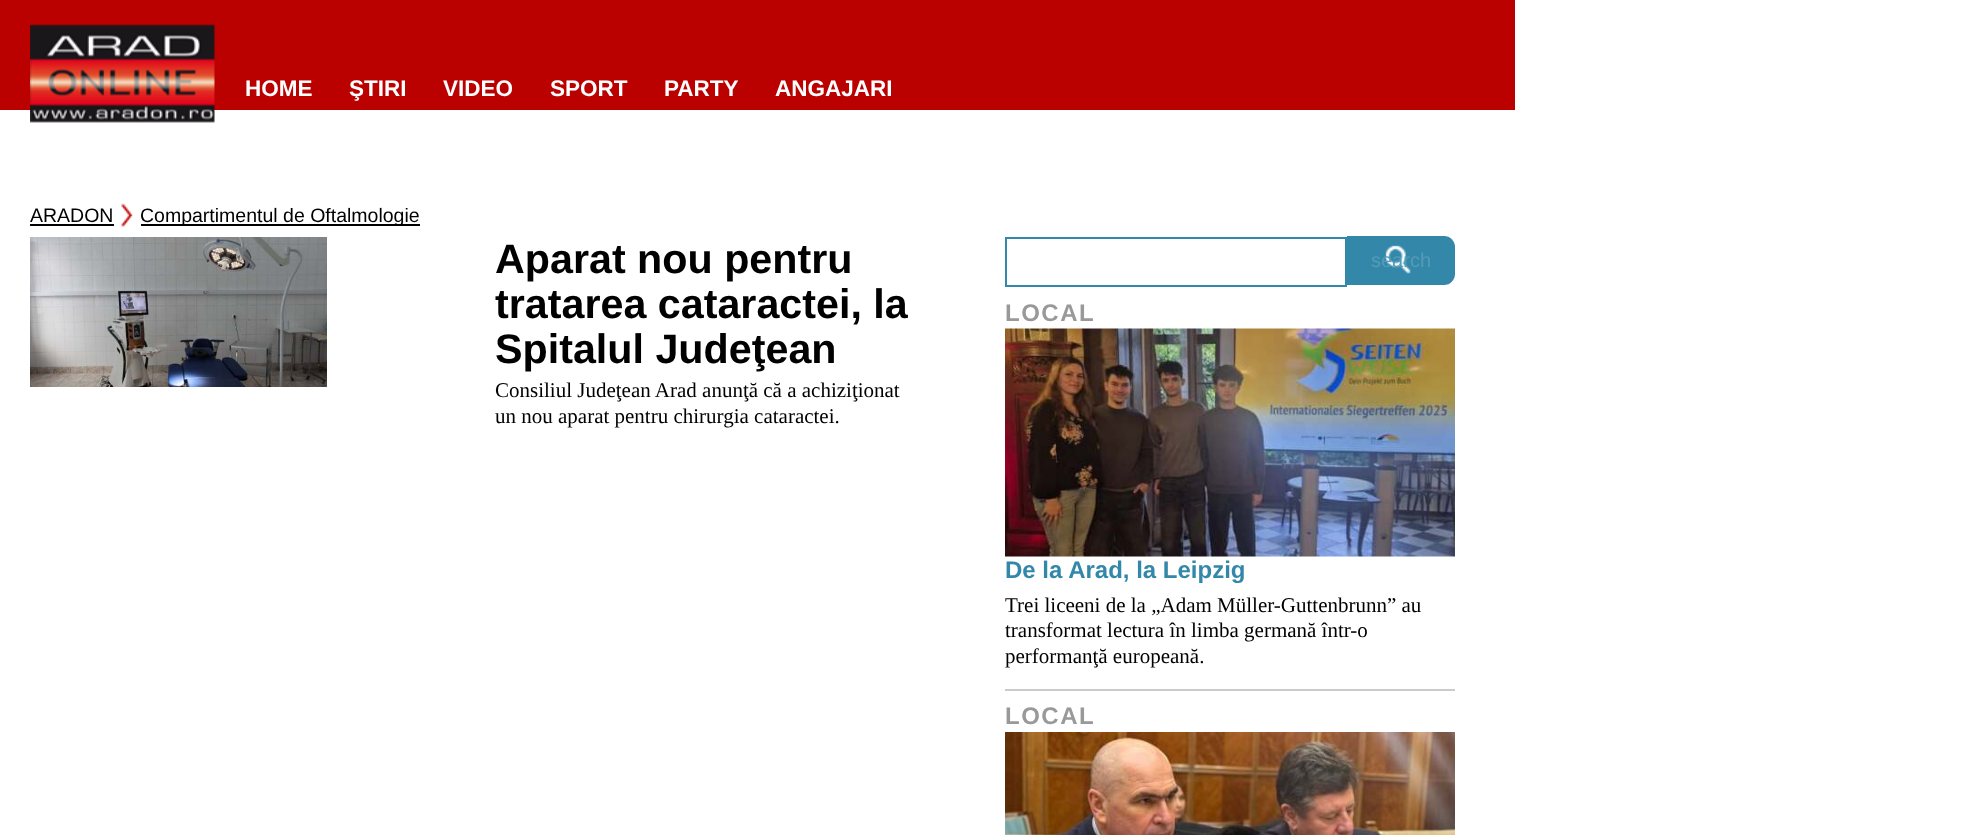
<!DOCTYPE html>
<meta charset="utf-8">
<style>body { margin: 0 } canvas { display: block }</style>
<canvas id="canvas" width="1975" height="835"></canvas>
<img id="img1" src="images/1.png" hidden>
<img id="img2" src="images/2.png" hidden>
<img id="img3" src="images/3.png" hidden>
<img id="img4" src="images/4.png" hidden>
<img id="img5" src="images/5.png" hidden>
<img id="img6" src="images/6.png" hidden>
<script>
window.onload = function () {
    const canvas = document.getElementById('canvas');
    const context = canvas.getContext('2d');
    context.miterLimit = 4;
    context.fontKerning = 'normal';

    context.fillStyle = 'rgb(255, 255, 255)';
    context.fillRect(0, 0, 1975, 835);
    context.fillStyle = 'rgb(187, 0, 0)';
    context.fillRect(0, 0, 1515, 110);
    context.drawImage(document.getElementById('img1'), 30, 24, 185, 99);
    context.fillStyle = 'rgb(0, 0, 0)';
    context.fillRect(30, 224, 84, 2);
    context.drawImage(document.getElementById('img2'), 121, 203, 12, 24);
    context.fillRect(141, 224, 279, 2);
    context.drawImage(document.getElementById('img3'), 30, 237, 297, 150);
    context.strokeStyle = 'rgb(51, 136, 170)';
    context.lineWidth = 2;
    context.strokeRect(1006, 238, 340, 48);
    context.fillStyle = 'rgb(51, 136, 170)';
    context.beginPath();
    context.roundRect(1347, 236, 108, 49, [0, 11, 11, 0]);
    context.fill();
    context.drawImage(document.getElementById('img4'), 1385, 245, 26, 29);
    context.fillStyle = 'rgb(203, 203, 203)';
    context.fillRect(1005, 689, 450, 2);
    context.drawImage(document.getElementById('img5'), 1005, 328, 450, 229);
    context.drawImage(document.getElementById('img6'), 1005, 732, 450, 103);
    context.font = 'bold 22.5px Liberation Sans';
    context.fillStyle = 'rgb(255, 255, 255)';
    context.fillText('HOME', 245, 96);
    context.fillText('ŞTIRI', 349, 96);
    context.fillText('VIDEO', 443, 96);
    context.fillText('SPORT', 550, 96);
    context.fillText('PARTY', 664, 96);
    context.fillText('ANGAJARI', 775, 96);
    context.font = '19.5px Liberation Sans';
    context.fillStyle = 'rgb(0, 0, 0)';
    context.fillText('ARADON', 30, 222);
    context.fillText('Compartimentul de Oftalmologie', 140, 222);
    context.font = 'bold 41.25px Liberation Sans';
    context.fillText('Aparat nou pentru', 495, 273);
    context.fillText('tratarea cataractei, la', 495, 318);
    context.fillText('Spitalul Judeţean', 495, 363);
    context.font = '21px Liberation Serif';
    context.fillText('Consiliul Judeţean Arad anunţă că a achiziţionat', 495, 397);
    context.fillText('un nou aparat pentru chirurgia cataractei.', 495, 423);
    context.font = '20px Liberation Sans';
    context.fillStyle = 'rgb(83, 155, 183)';
    context.fillText('search', 1371, 267);
    context.letterSpacing = '1.5px';
    context.font = 'bold 24px Liberation Sans';
    context.fillStyle = 'rgb(153, 153, 153)';
    context.fillText('LOCAL', 1005, 321);
    context.letterSpacing = '0px';
    context.fillStyle = 'rgb(51, 136, 170)';
    context.fillText('De la Arad, la Leipzig', 1005, 578);
    context.font = '21px Liberation Serif';
    context.fillStyle = 'rgb(0, 0, 0)';
    context.fillText('Trei liceeni de la „Adam Müller-Guttenbrunn” au', 1005, 612);
    context.fillText('transformat lectura în limba germană într-o', 1005, 637);
    context.fillText('performanţă europeană.', 1005, 663);
    context.letterSpacing = '1.5px';
    context.font = 'bold 24px Liberation Sans';
    context.fillStyle = 'rgb(153, 153, 153)';
    context.fillText('LOCAL', 1005, 724);
};
</script>
